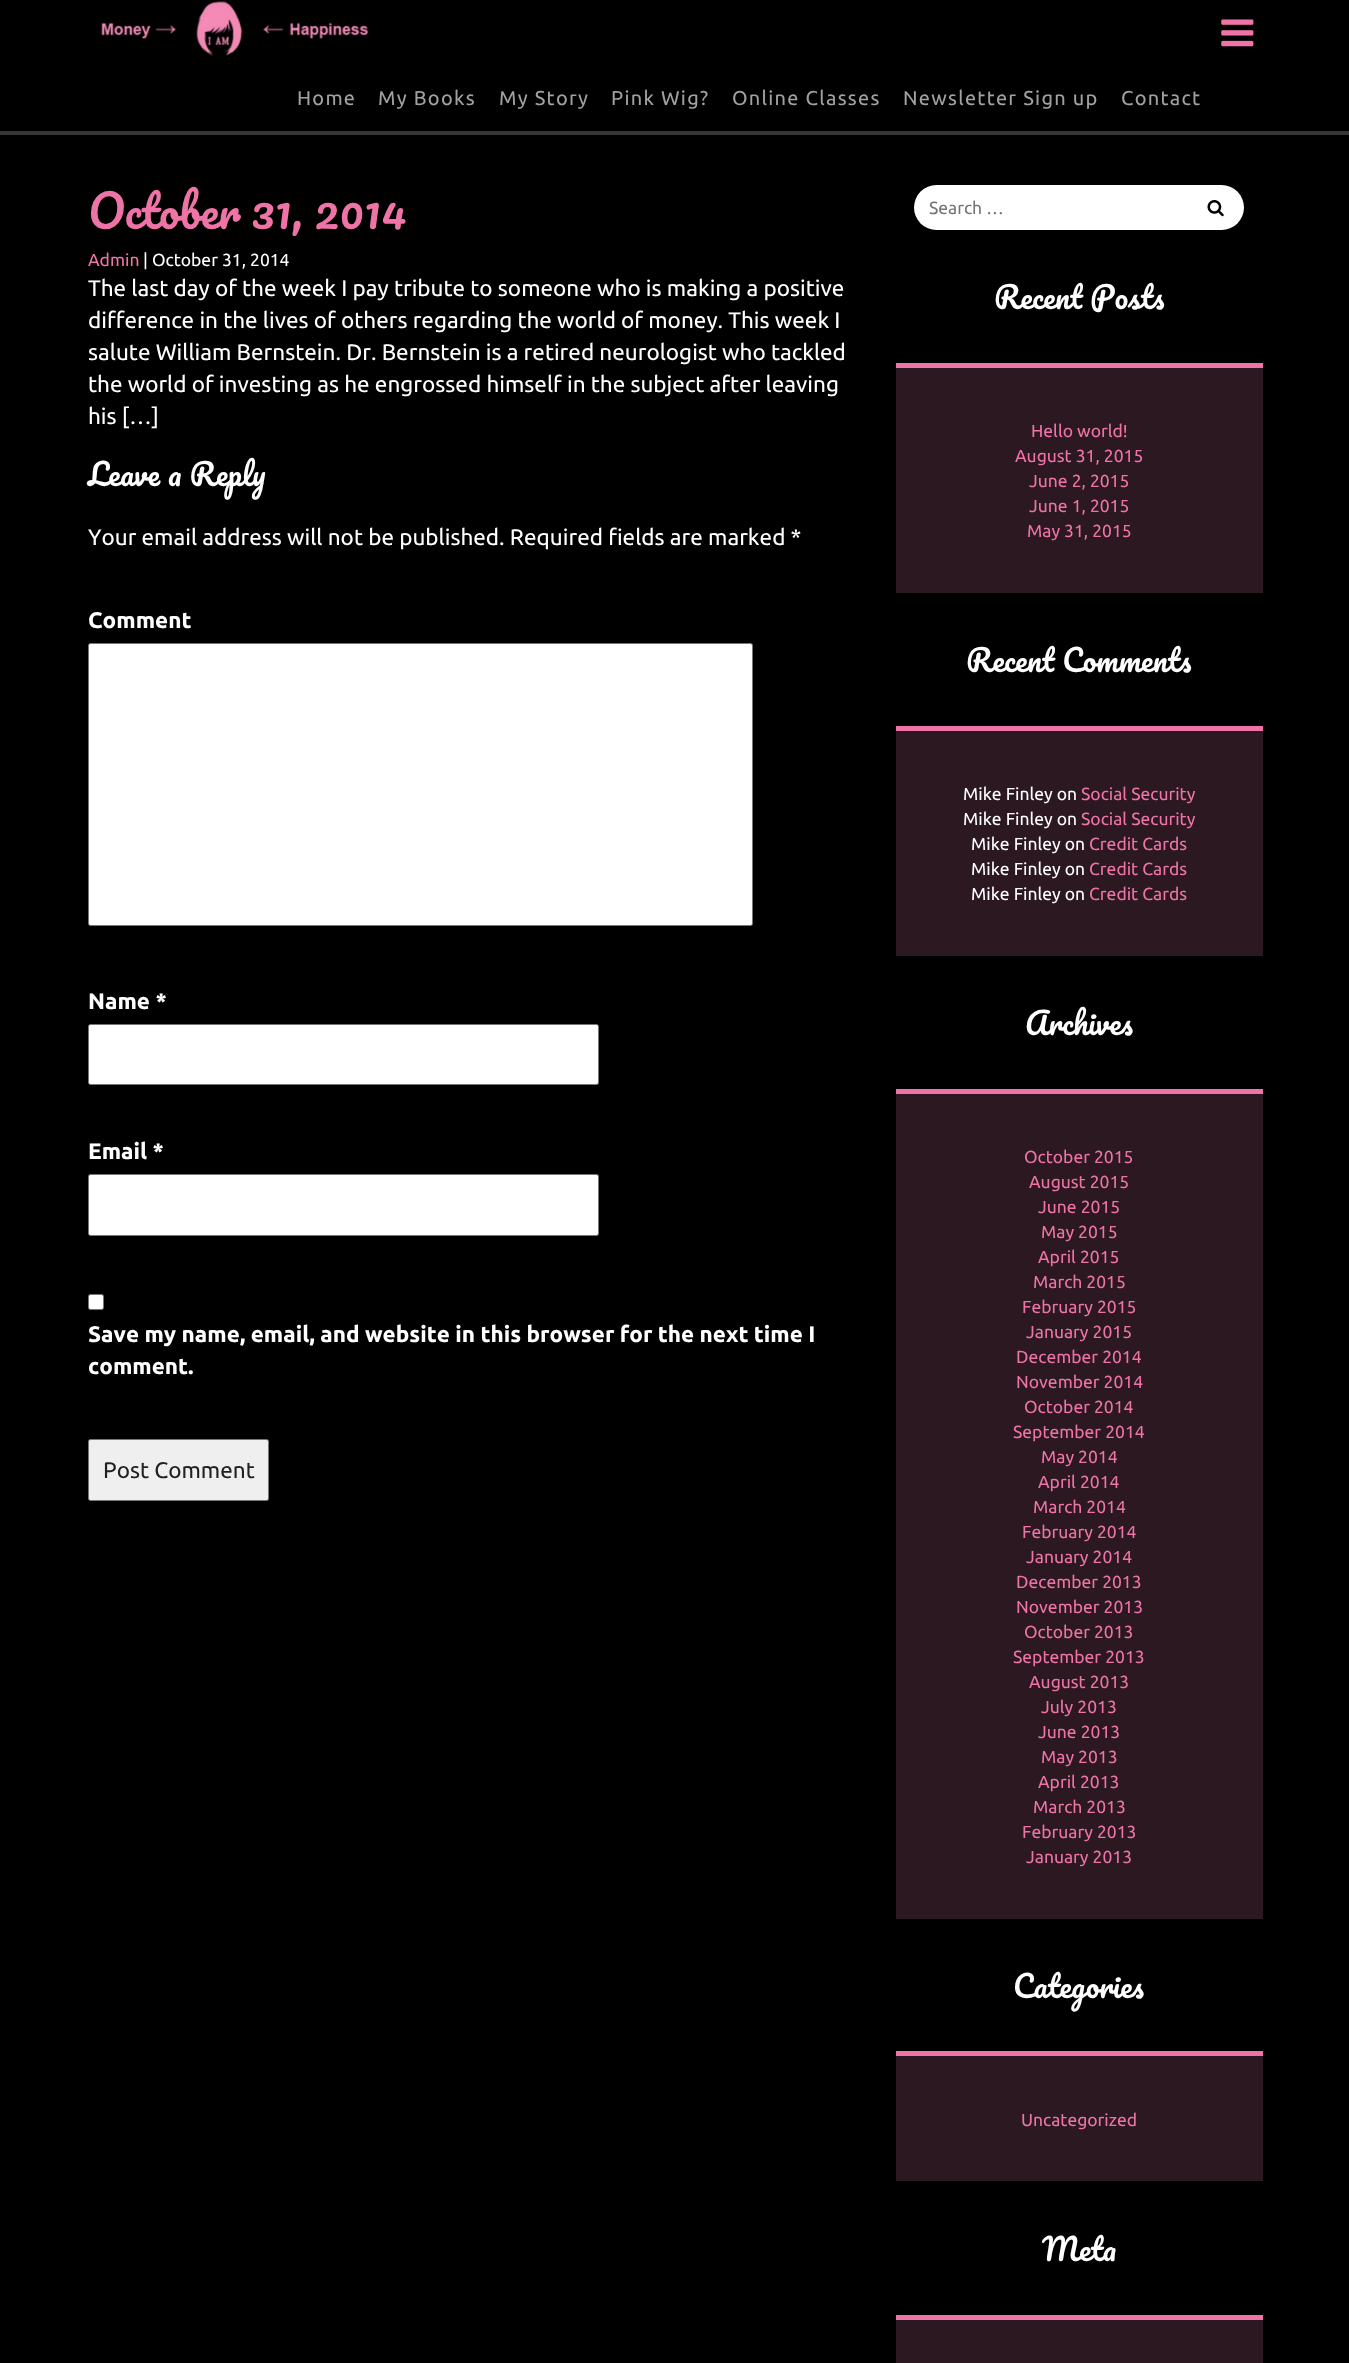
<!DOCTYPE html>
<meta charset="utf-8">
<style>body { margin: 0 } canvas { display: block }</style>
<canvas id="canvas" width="1349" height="2363"></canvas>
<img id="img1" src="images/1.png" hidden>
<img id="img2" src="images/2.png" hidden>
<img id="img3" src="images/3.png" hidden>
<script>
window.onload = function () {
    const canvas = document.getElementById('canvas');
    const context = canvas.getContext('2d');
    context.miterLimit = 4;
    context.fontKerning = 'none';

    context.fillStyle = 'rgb(0, 0, 0)';
    context.fillRect(0, 0, 1349, 2363);
    context.fillStyle = 'rgb(54, 54, 54)';
    context.fillRect(0, 131, 1349, 4);
    context.drawImage(document.getElementById('img1'), 101, 0, 268, 57);
    context.drawImage(document.getElementById('img2'), 1221, 19, 33, 28);
    context.fillStyle = 'rgb(255, 255, 255)';
    context.beginPath();
    context.roundRect(88.5, 643.5, 664, 282, 2);
    context.fill();
    context.strokeStyle = 'rgb(118, 118, 118)';
    context.stroke();
    context.beginPath();
    context.roundRect(88.5, 1024.5, 510, 60, 2);
    context.fill();
    context.stroke();
    context.beginPath();
    context.roundRect(88.5, 1174.5, 510, 61, 2);
    context.fill();
    context.stroke();
    context.beginPath();
    context.roundRect(88.5, 1294.5, 15, 15, 2);
    context.fill();
    context.stroke();
    context.fillStyle = 'rgb(239, 239, 239)';
    context.beginPath();
    context.roundRect(88.5, 1439.5, 180, 61, 2);
    context.fill();
    context.stroke();
    context.fillStyle = 'rgb(255, 255, 255)';
    context.beginPath();
    context.roundRect(914, 185, 330, 45, 22.5);
    context.fill();
    context.drawImage(document.getElementById('img3'), 1207, 200, 17, 17);
    context.fillStyle = 'rgb(238, 116, 167)';
    context.fillRect(896, 363, 367, 5);
    context.fillStyle = 'rgb(43, 24, 32)';
    context.fillRect(896, 368, 367, 225);
    context.fillStyle = 'rgb(238, 116, 167)';
    context.fillRect(896, 726, 367, 5);
    context.fillStyle = 'rgb(43, 24, 32)';
    context.fillRect(896, 731, 367, 225);
    context.fillStyle = 'rgb(238, 116, 167)';
    context.fillRect(896, 1089, 367, 5);
    context.fillStyle = 'rgb(43, 24, 32)';
    context.fillRect(896, 1094, 367, 825);
    context.fillStyle = 'rgb(238, 116, 167)';
    context.fillRect(896, 2051, 367, 5);
    context.fillStyle = 'rgb(43, 24, 32)';
    context.fillRect(896, 2056, 367, 125);
    context.fillStyle = 'rgb(238, 116, 167)';
    context.fillRect(896, 2315, 367, 5);
    context.fillStyle = 'rgb(43, 24, 32)';
    context.fillRect(896, 2320, 367, 43);
    context.letterSpacing = '1.25px';
    context.font = '20px Ubuntu';
    context.fillStyle = 'rgb(161, 161, 161)';
    context.fillText('Home', 297, 105);
    context.fillText('My Books', 378, 105);
    context.fillText('My Story', 499, 105);
    context.fillText('Pink Wig?', 611, 105);
    context.fillText('Online Classes', 732, 105);
    context.fillText('Newsletter Sign up', 903, 105);
    context.fillText('Contact', 1121, 105);
    context.letterSpacing = '0px';
    context.wordSpacing = '-1px';
    context.font = '45px Pacifico';
    context.fillStyle = 'rgb(238, 116, 167)';
    context.fillText('October 31, 2014', 88, 229);
    context.wordSpacing = '0px';
    context.font = '17.5px Ubuntu';
    context.fillText('Admin', 88, 266);
    context.fillStyle = 'rgb(255, 255, 255)';
    context.fillText('| October 31, 2014', 143, 266);
    context.font = '22.5px Ubuntu';
    context.fillText('The last day of the week I pay tribute to someone who is making a positive', 88, 296);
    context.fillText('difference in the lives of others regarding the world of money. This week I', 88, 328);
    context.fillText('salute William Bernstein. Dr. Bernstein is a retired neurologist who tackled', 88, 360);
    context.fillText('the world of investing as he engrossed himself in the subject after leaving', 88, 392);
    context.fillText('his […]', 88, 424);
    context.font = '30px Pacifico';
    context.fillText('Leave a Reply', 88, 486);
    context.font = '22.5px Ubuntu';
    context.fillText('Your email address will not be published. Required fields are marked *', 88, 545);
    context.font = 'bold 22.5px Ubuntu';
    context.fillText('Comment', 88, 628);
    context.fillText('Name *', 88, 1009);
    context.fillText('Email *', 88, 1159);
    context.fillText('Save my name, email, and website in this browser for the next time I', 88, 1342);
    context.fillText('comment.', 88, 1374);
    context.font = '22.5px Ubuntu';
    context.fillStyle = 'rgb(34, 34, 34)';
    context.fillText('Post Comment', 103, 1478);
    context.font = '17.5px Ubuntu';
    context.fillStyle = 'rgb(117, 117, 117)';
    context.fillText('Search …', 929, 214);
    context.font = '30px Pacifico';
    context.fillStyle = 'rgb(255, 255, 255)';
    context.fillText('Recent Posts', 994, 309);
    context.font = '17.5px Ubuntu';
    context.fillStyle = 'rgb(238, 116, 167)';
    context.fillText('Hello world!', 1031, 437);
    context.fillText('August 31, 2015', 1015, 462);
    context.fillText('June 2, 2015', 1029, 487);
    context.fillText('June 1, 2015', 1029, 512);
    context.fillText('May 31, 2015', 1027, 537);
    context.font = '30px Pacifico';
    context.fillStyle = 'rgb(255, 255, 255)';
    context.fillText('Recent Comments', 966, 672);
    context.font = '17.5px Ubuntu';
    context.fillText('Mike Finley on', 963, 800);
    context.fillStyle = 'rgb(238, 116, 167)';
    context.fillText('Social Security', 1081, 800);
    context.fillStyle = 'rgb(255, 255, 255)';
    context.fillText('Mike Finley on', 963, 825);
    context.fillStyle = 'rgb(238, 116, 167)';
    context.fillText('Social Security', 1081, 825);
    context.fillStyle = 'rgb(255, 255, 255)';
    context.fillText('Mike Finley on', 971, 850);
    context.fillStyle = 'rgb(238, 116, 167)';
    context.fillText('Credit Cards', 1089, 850);
    context.fillStyle = 'rgb(255, 255, 255)';
    context.fillText('Mike Finley on', 971, 875);
    context.fillStyle = 'rgb(238, 116, 167)';
    context.fillText('Credit Cards', 1089, 875);
    context.fillStyle = 'rgb(255, 255, 255)';
    context.fillText('Mike Finley on', 971, 900);
    context.fillStyle = 'rgb(238, 116, 167)';
    context.fillText('Credit Cards', 1089, 900);
    context.font = '30px Pacifico';
    context.fillStyle = 'rgb(255, 255, 255)';
    context.fillText('Archives', 1025, 1035);
    context.font = '17.5px Ubuntu';
    context.fillStyle = 'rgb(238, 116, 167)';
    context.fillText('October 2015', 1024, 1163);
    context.fillText('August 2015', 1029, 1188);
    context.fillText('June 2015', 1038, 1213);
    context.fillText('May 2015', 1041, 1238);
    context.fillText('April 2015', 1038, 1263);
    context.fillText('March 2015', 1033, 1288);
    context.fillText('February 2015', 1022, 1313);
    context.fillText('January 2015', 1026, 1338);
    context.fillText('December 2014', 1016, 1363);
    context.fillText('November 2014', 1016, 1388);
    context.fillText('October 2014', 1024, 1413);
    context.fillText('September 2014', 1013, 1438);
    context.fillText('May 2014', 1041, 1463);
    context.fillText('April 2014', 1038, 1488);
    context.fillText('March 2014', 1033, 1513);
    context.fillText('February 2014', 1022, 1538);
    context.fillText('January 2014', 1026, 1563);
    context.fillText('December 2013', 1016, 1588);
    context.fillText('November 2013', 1016, 1613);
    context.fillText('October 2013', 1024, 1638);
    context.fillText('September 2013', 1013, 1663);
    context.fillText('August 2013', 1029, 1688);
    context.fillText('July 2013', 1041, 1713);
    context.fillText('June 2013', 1038, 1738);
    context.fillText('May 2013', 1041, 1763);
    context.fillText('April 2013', 1038, 1788);
    context.fillText('March 2013', 1033, 1813);
    context.fillText('February 2013', 1022, 1838);
    context.fillText('January 2013', 1026, 1863);
    context.font = '30px Pacifico';
    context.fillStyle = 'rgb(255, 255, 255)';
    context.fillText('Categories', 1013, 1998);
    context.font = '17.5px Ubuntu';
    context.fillStyle = 'rgb(238, 116, 167)';
    context.fillText('Uncategorized', 1021, 2126);
    context.font = '30px Pacifico';
    context.fillStyle = 'rgb(255, 255, 255)';
    context.fillText('Meta', 1042, 2261);
};
</script>
